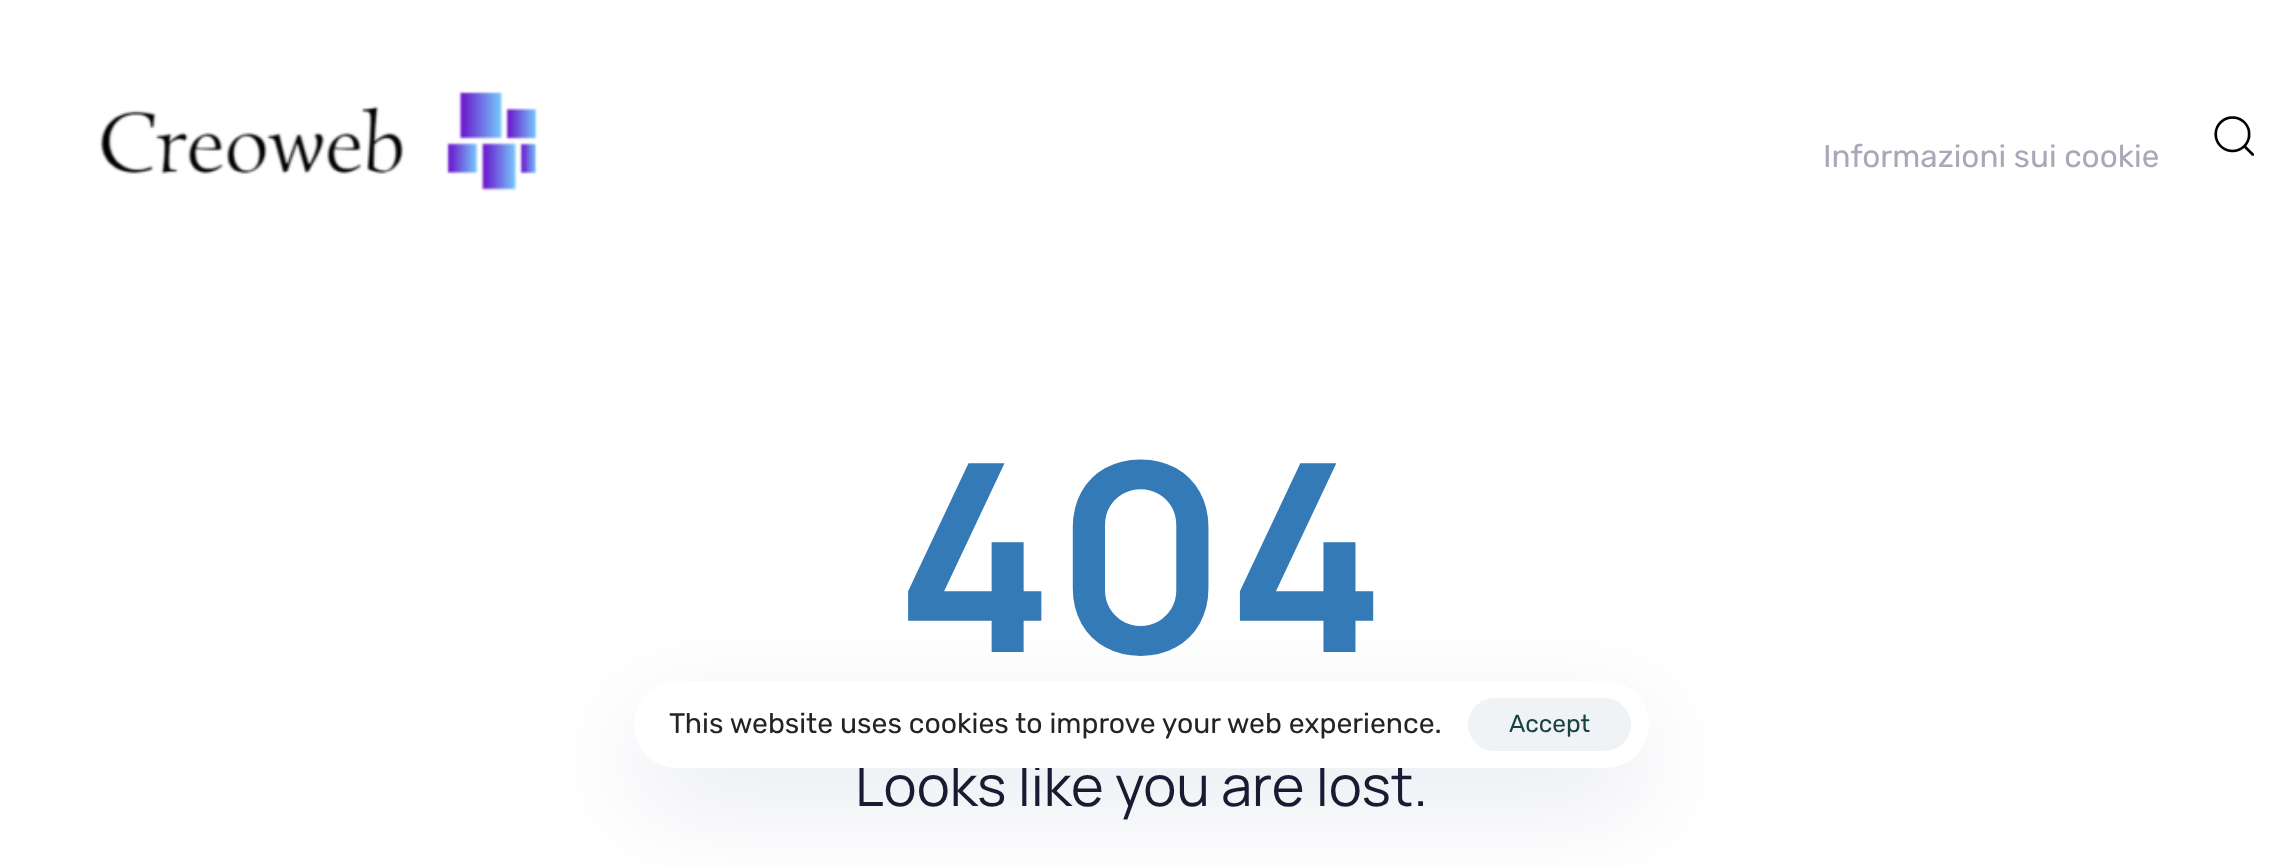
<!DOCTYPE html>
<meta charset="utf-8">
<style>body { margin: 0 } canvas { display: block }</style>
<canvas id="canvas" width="2281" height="866"></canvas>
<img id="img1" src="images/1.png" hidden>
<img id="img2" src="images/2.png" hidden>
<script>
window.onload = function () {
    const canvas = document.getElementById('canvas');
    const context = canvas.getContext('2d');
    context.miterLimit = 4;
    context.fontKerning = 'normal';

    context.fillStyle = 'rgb(255, 255, 255)';
    context.fillRect(0, 0, 2281, 866);
    context.drawImage(document.getElementById('img1'), 99, 90, 439, 102);
    context.drawImage(document.getElementById('img2'), 2214, 116, 40, 40);
    context.fillStyle = 'rgba(92, 107, 149, 0.15)';
    context.filter = 'blur(52.5px)';
    context.beginPath();
    context.roundRect(634, 716, 1015, 87, 43.5);
    context.fill();
    context.filter = 'none';
    context.font = '31.5px Rubik';
    context.fillStyle = 'rgb(167, 169, 184)';
    context.fillText('Informazioni sui cookie', 1823, 167);
    context.font = 'bold 262px Manrope';
    context.fillStyle = 'rgb(51, 122, 183)';
    context.fillText('404', 895, 652);
    context.font = '56px Manrope';
    context.fillStyle = 'rgb(24, 27, 49)';
    context.fillText('Looks like you are lost.', 855, 806);
    context.fillStyle = 'rgb(255, 255, 255)';
    context.beginPath();
    context.roundRect(634, 681, 1015, 87, 43.5);
    context.fill();
    context.font = '28.35px Rubik';
    context.fillStyle = 'rgb(36, 36, 36)';
    context.fillText('This website uses cookies to improve your web experience.', 669, 733);
    context.fillStyle = 'rgb(239, 243, 245)';
    context.beginPath();
    context.roundRect(1468, 698, 163, 53, 26.5);
    context.fill();
    context.font = '24.5px Rubik';
    context.fillStyle = 'rgb(24, 67, 65)';
    context.fillText('Accept', 1509, 732);
};
</script>
